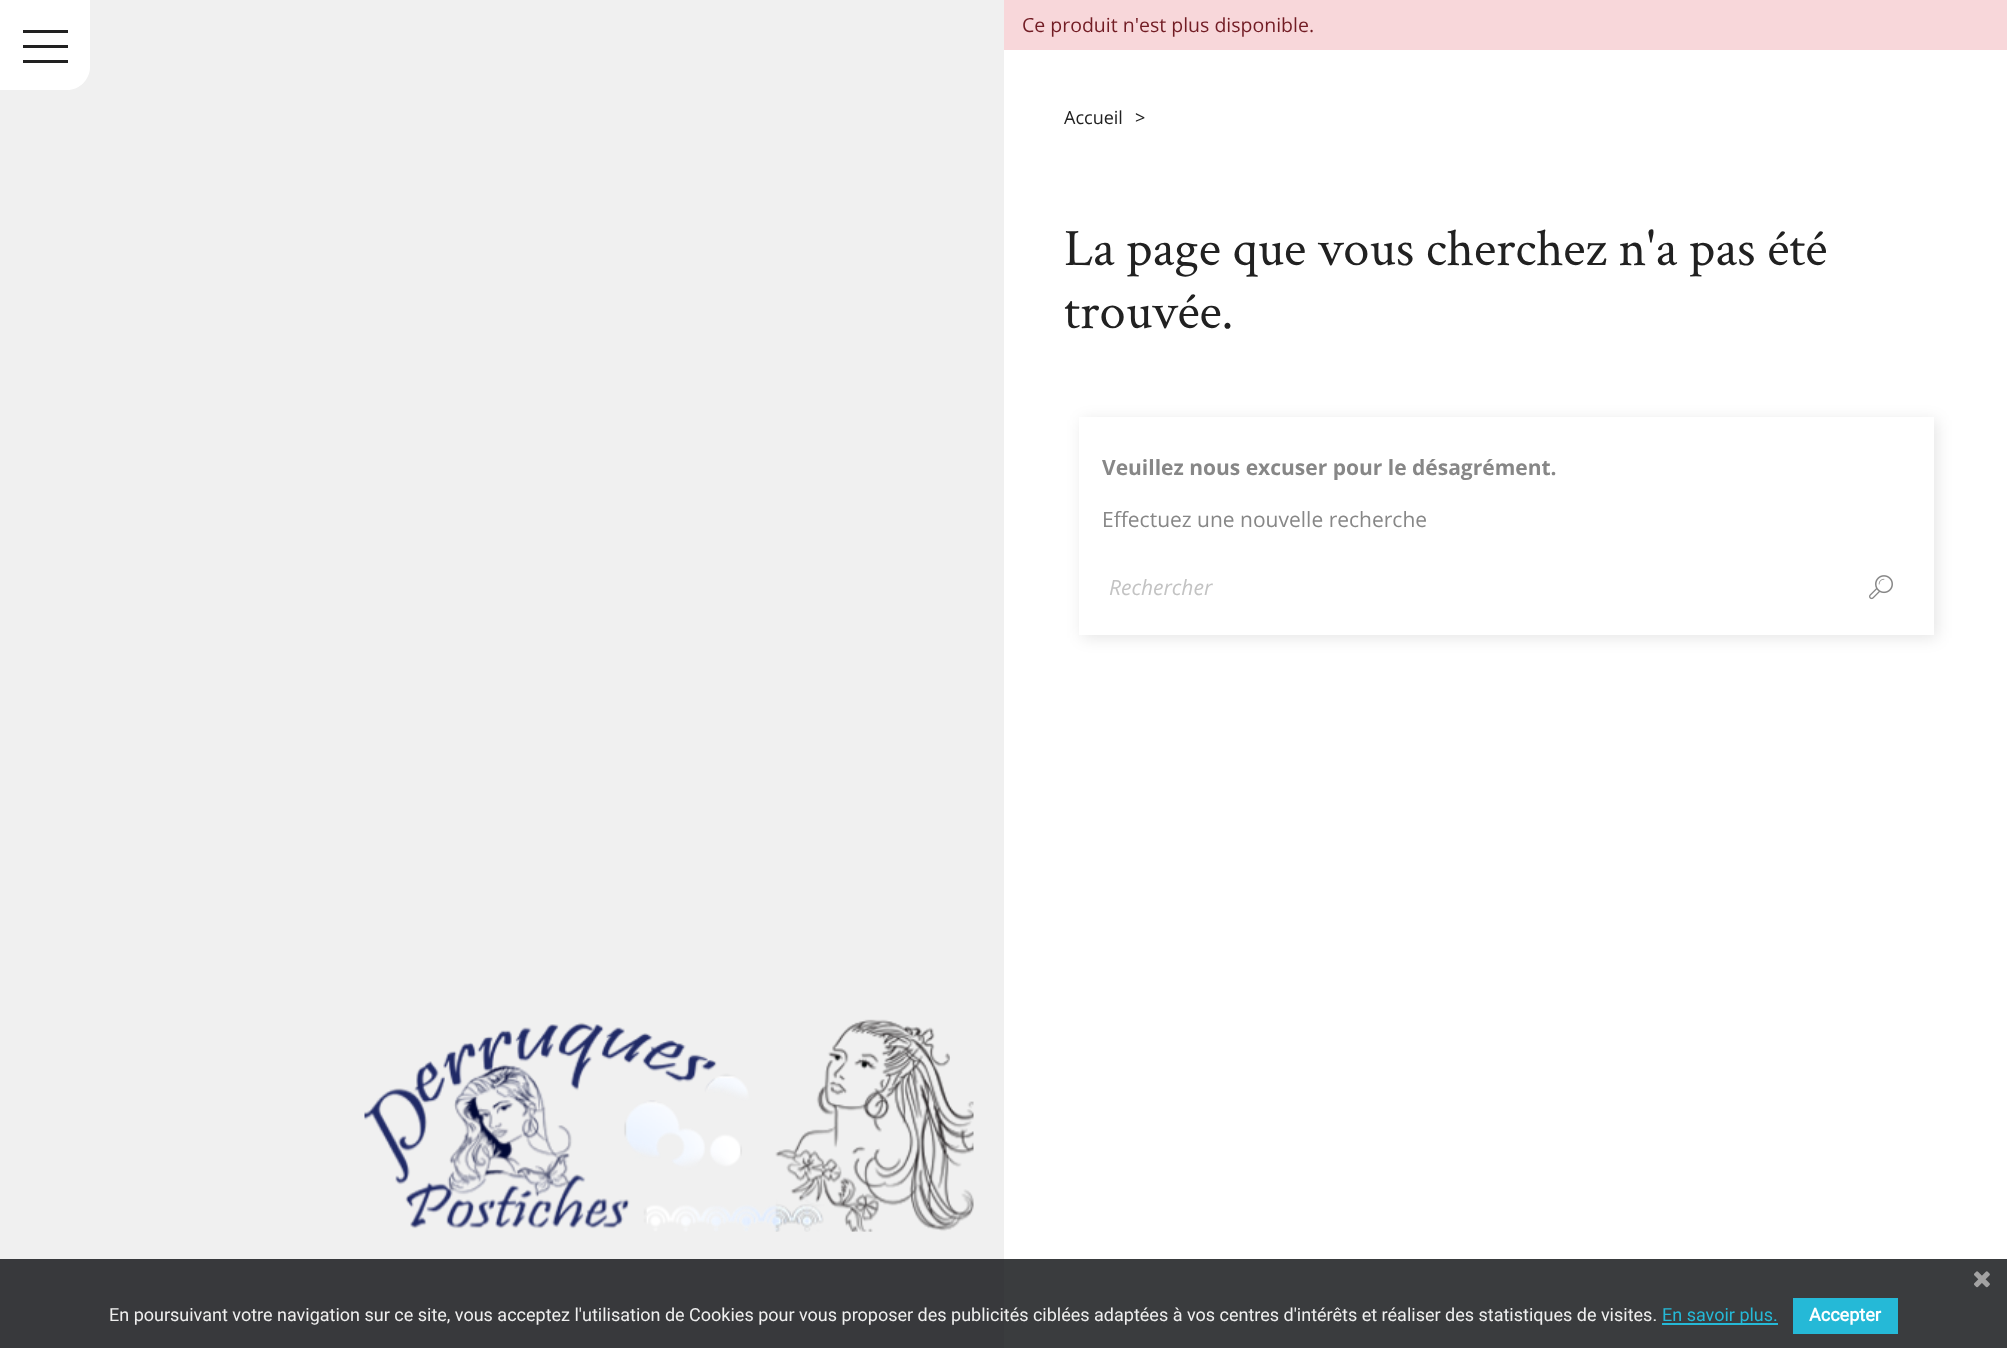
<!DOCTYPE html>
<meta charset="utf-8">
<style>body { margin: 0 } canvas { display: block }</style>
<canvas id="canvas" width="2007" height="1348"></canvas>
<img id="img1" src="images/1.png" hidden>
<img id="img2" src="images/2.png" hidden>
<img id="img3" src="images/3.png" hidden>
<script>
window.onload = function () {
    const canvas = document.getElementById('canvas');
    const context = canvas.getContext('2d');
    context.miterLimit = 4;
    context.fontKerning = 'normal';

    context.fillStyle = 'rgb(255, 255, 255)';
    context.fillRect(0, 0, 2007, 1348);
    context.fillStyle = 'rgb(58, 60, 62)';
    context.fillRect(1004, 1259, 1003, 89);
    context.fillStyle = 'rgb(240, 240, 240)';
    context.fillRect(0, 0, 1004, 1259);
    context.fillStyle = 'rgb(255, 255, 255)';
    context.beginPath();
    context.moveTo(-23, 0);
    context.lineTo(90, 0);
    context.lineTo(90, 67);
    context.bezierCurveTo(90, 79.5, 79.5, 90, 67, 90);
    context.lineTo(-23, 90);
    context.closePath();
    context.fill();
    context.fillStyle = 'rgb(33, 33, 33)';
    context.fillRect(23, 30, 45, 3);
    context.fillRect(23, 45, 45, 3);
    context.fillRect(23, 60, 45, 3);
    context.fillStyle = 'rgb(56, 57, 60)';
    context.fillRect(0, 1259, 1004, 89);
    context.drawImage(document.getElementById('img1'), 364, 1019, 610, 213);
    context.fillStyle = 'rgb(248, 215, 218)';
    context.fillRect(1004, 0, 1003, 50);
    context.fillStyle = 'rgba(0, 0, 0, 0.1)';
    context.filter = 'blur(8px)';
    context.beginPath();
    context.rect(1082, 420, 855, 218);
    context.fill();
    context.filter = 'none';
    context.fillStyle = 'rgb(255, 255, 255)';
    context.fillRect(1079, 417, 855, 218);
    context.drawImage(document.getElementById('img2'), 1869, 575, 24, 25);
    context.drawImage(document.getElementById('img3'), 1974, 1271, 16, 17);
    context.fillStyle = 'rgb(37, 185, 215)';
    context.fillRect(1662, 1323, 116, 2);
    context.fillRect(1793, 1298, 105, 36);
    context.font = '19.5px Open Sans';
    context.fillStyle = 'rgb(114, 28, 36)';
    context.fillText('Ce produit n\'est plus disponible.', 1022, 32);
    context.font = '18px Open Sans';
    context.fillStyle = 'rgb(33, 33, 33)';
    context.fillText('Accueil', 1064, 124);
    context.fillText('>', 1135, 124);
    context.font = '52.5px Crimson Text';
    context.fillText('La page que vous cherchez n\'a pas été', 1064, 265);
    context.fillText('trouvée.', 1064, 328);
    context.font = 'bold 21px Open Sans';
    context.fillStyle = 'rgb(135, 135, 135)';
    context.fillText('Veuillez nous excuser pour le désagrément.', 1102, 475);
    context.font = '21px Open Sans';
    context.fillText('Effectuez une nouvelle recherche', 1102, 527);
    context.font = 'italic 21px Open Sans';
    context.fillStyle = 'rgb(195, 195, 195)';
    context.fillText('Rechercher', 1109, 595);
    context.font = '18px Roboto';
    context.fillStyle = 'rgb(239, 239, 239)';
    context.fillText('En poursuivant votre navigation sur ce site, vous acceptez l\'utilisation de Cookies pour vous proposer des publicités ciblées adaptées à vos centres d\'intérêts et réaliser des statistiques de visites.', 109, 1321);
    context.fillStyle = 'rgb(37, 185, 215)';
    context.fillText('En savoir plus.', 1662, 1321);
    context.font = 'bold 18px Roboto';
    context.fillStyle = 'rgb(255, 255, 255)';
    context.fillText('Accepter', 1809, 1321);
};
</script>
